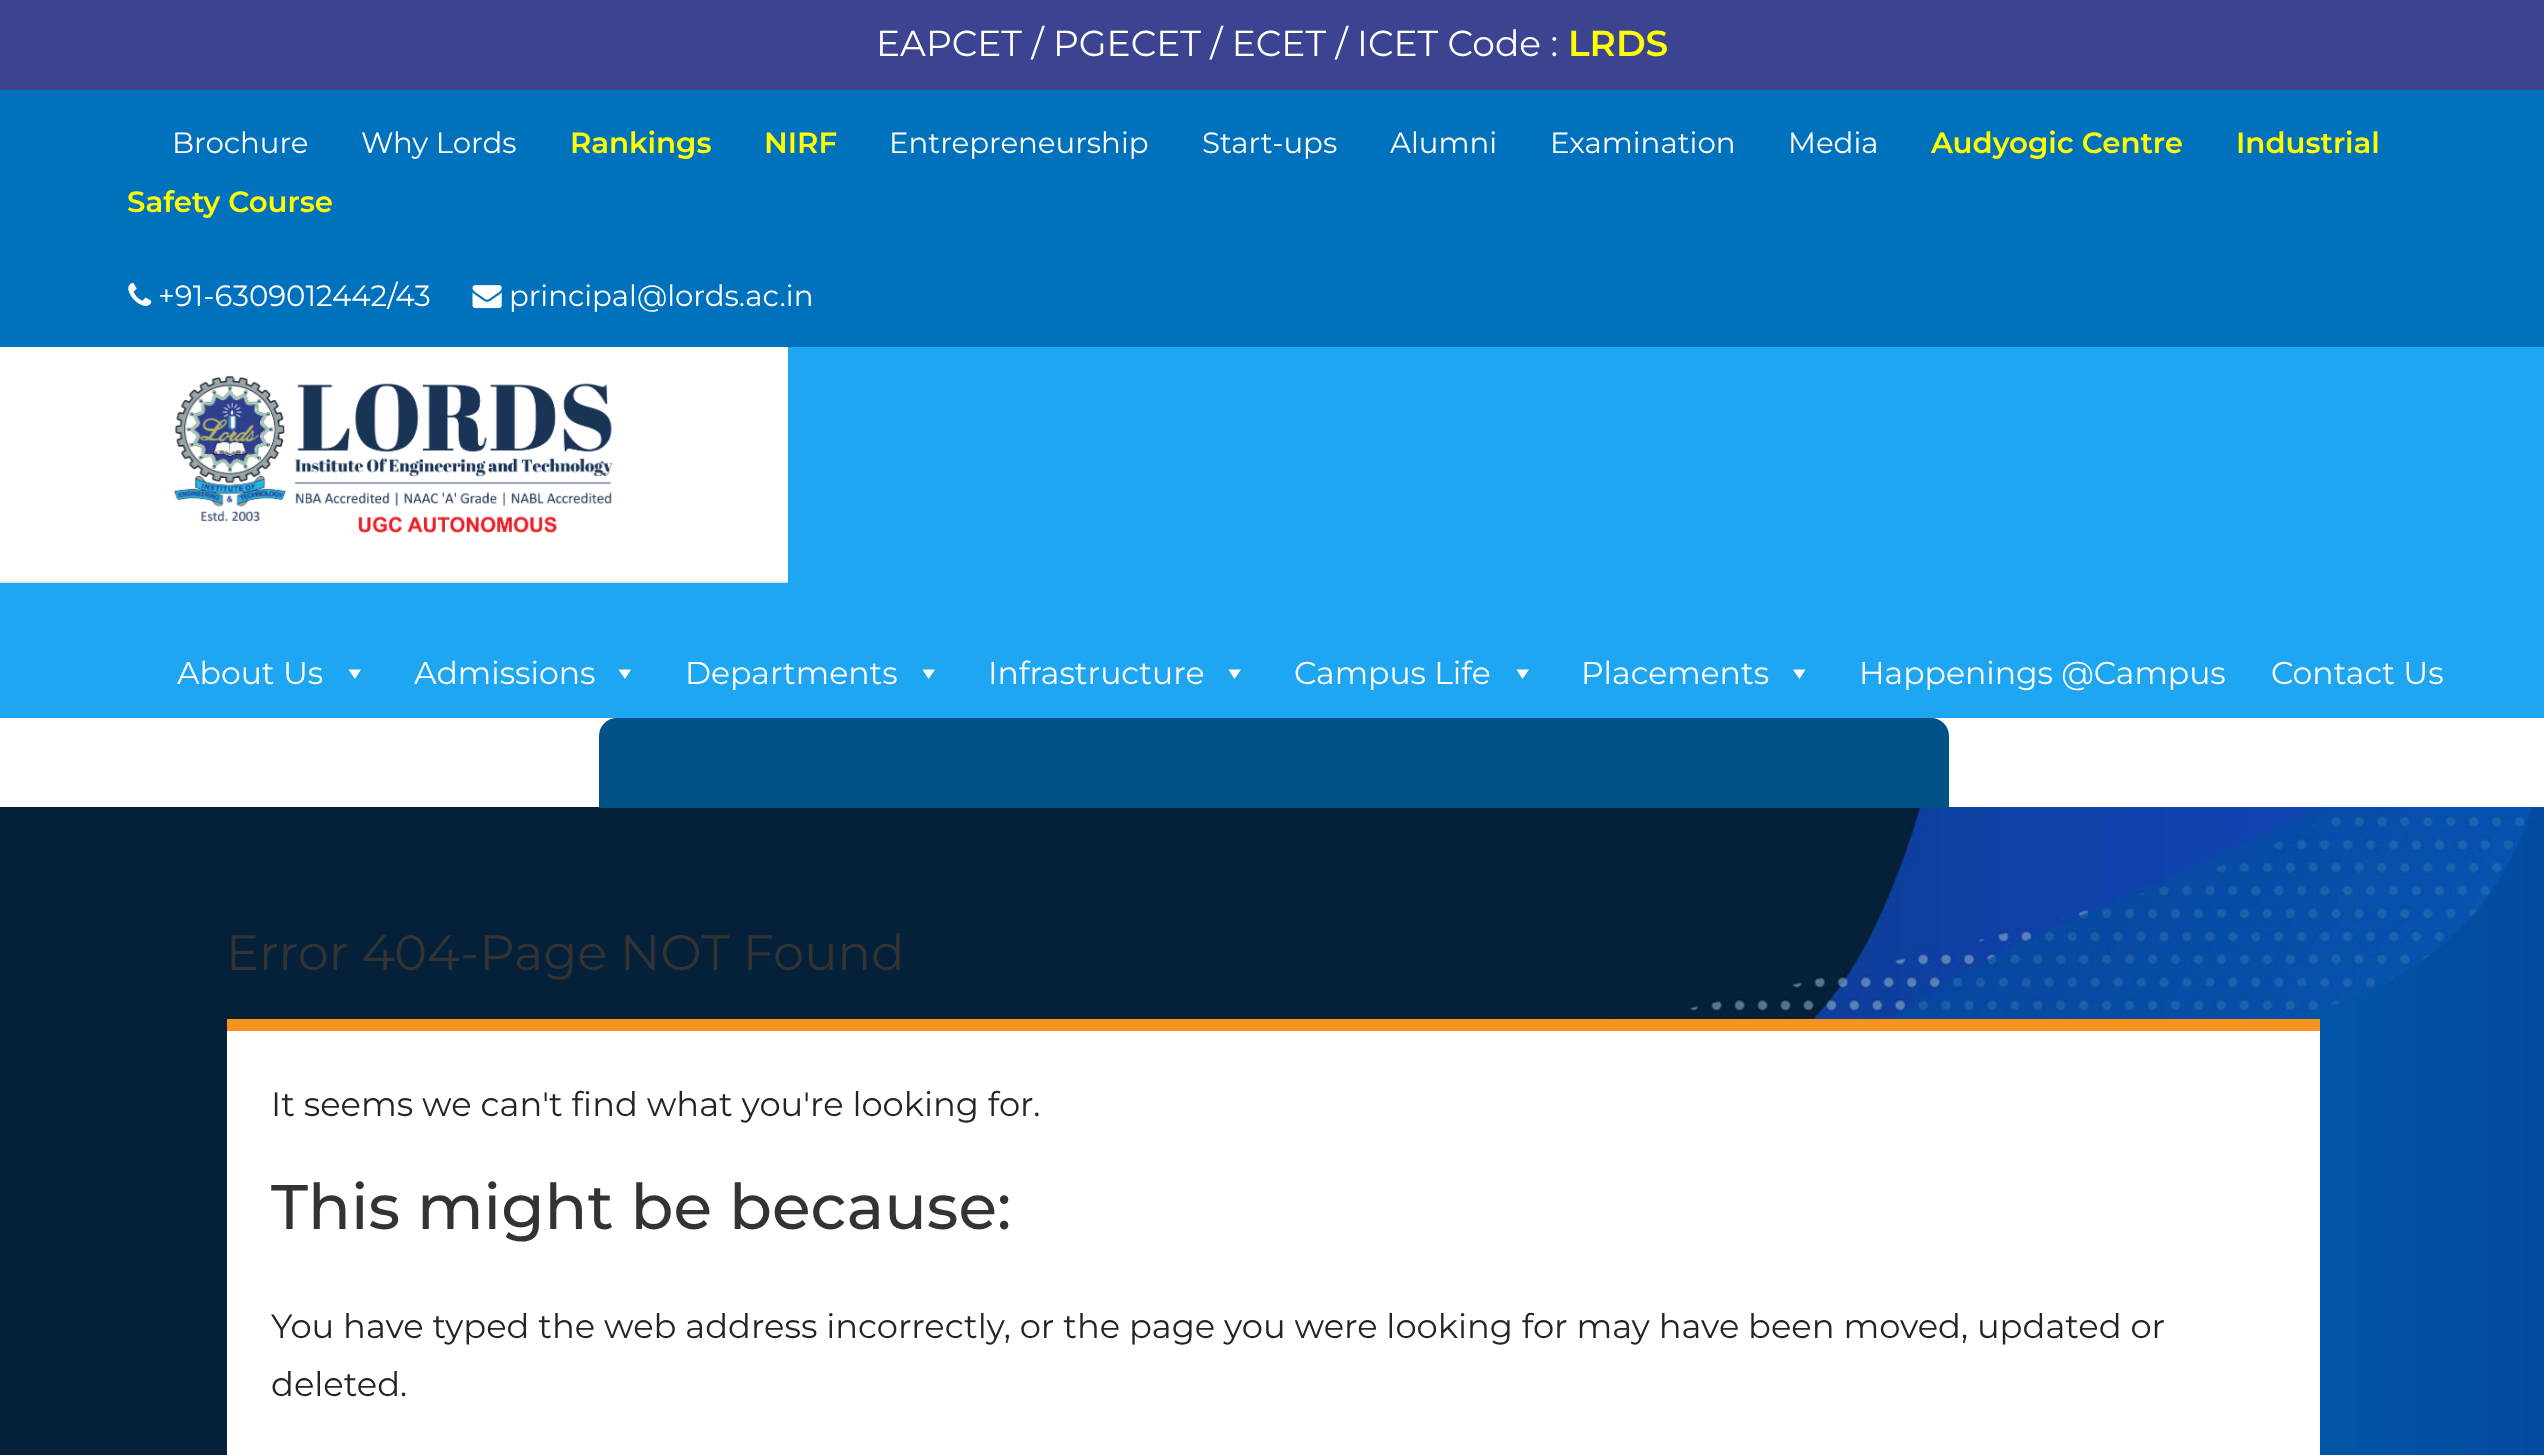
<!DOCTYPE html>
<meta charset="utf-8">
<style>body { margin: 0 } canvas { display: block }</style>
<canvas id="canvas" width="2544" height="1455"></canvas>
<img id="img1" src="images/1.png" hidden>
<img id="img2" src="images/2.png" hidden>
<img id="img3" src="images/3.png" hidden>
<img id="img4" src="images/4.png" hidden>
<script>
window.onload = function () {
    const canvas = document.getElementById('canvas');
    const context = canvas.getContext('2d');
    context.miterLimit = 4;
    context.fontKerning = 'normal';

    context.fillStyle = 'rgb(255, 255, 255)';
    context.fillRect(0, 0, 2544, 1455);
    context.fillStyle = 'rgb(60, 68, 146)';
    context.fillRect(0, 0, 2544, 90);
    context.fillStyle = 'rgb(0, 113, 188)';
    context.fillRect(0, 90, 2544, 257);
    context.drawImage(document.getElementById('img1'), 128, 283, 24, 23);
    context.drawImage(document.getElementById('img2'), 472, 285, 30, 24);
    context.fillStyle = 'rgb(31, 166, 242)';
    context.fillRect(0, 347, 2544, 371);
    context.fillStyle = 'rgb(255, 255, 255)';
    context.fillRect(0, 347, 788, 234);
    context.fillStyle = 'rgb(230, 230, 230)';
    context.fillRect(0, 581, 788, 2);
    context.drawImage(document.getElementById('img3'), 174, 375, 439, 158);
    context.fillStyle = 'rgb(255, 255, 255)';
    context.beginPath();
    context.moveTo(361, 669.5);
    context.lineTo(355, 679);
    context.lineTo(348.5, 669.5);
    context.closePath();
    context.fill();
    context.beginPath();
    context.moveTo(631, 669.5);
    context.lineTo(625, 679);
    context.lineTo(618.5, 669.5);
    context.closePath();
    context.fill();
    context.beginPath();
    context.moveTo(935, 669.5);
    context.lineTo(928.5, 679);
    context.lineTo(922.5, 669.5);
    context.closePath();
    context.fill();
    context.beginPath();
    context.moveTo(1241, 669.5);
    context.lineTo(1234.5, 679);
    context.lineTo(1228.5, 669.5);
    context.closePath();
    context.fill();
    context.beginPath();
    context.moveTo(1529, 669.5);
    context.lineTo(1522.5, 679);
    context.lineTo(1516.5, 669.5);
    context.closePath();
    context.fill();
    context.beginPath();
    context.moveTo(1805.5, 669.5);
    context.lineTo(1799.5, 679);
    context.lineTo(1793, 669.5);
    context.closePath();
    context.fill();
    context.drawImage(document.getElementById('img4'), 0, 807, 2544, 648);
    context.fillStyle = 'rgb(0, 82, 137)';
    context.beginPath();
    context.roundRect(599, 718, 1350, 90, [18, 18, 0, 0]);
    context.fill();
    context.fillStyle = 'rgb(255, 255, 255)';
    context.fillRect(227, 1031, 2093, 424);
    context.fillStyle = 'rgb(247, 147, 30)';
    context.fillRect(227, 1019, 2093, 12);
    context.font = '36px Montserrat';
    context.fillStyle = 'rgb(255, 255, 255)';
    context.fillText('EAPCET / PGECET / ECET / ICET Code :', 876, 56);
    context.font = '600 36px Montserrat';
    context.fillStyle = 'rgb(255, 255, 0)';
    context.fillText('LRDS', 1568, 56);
    context.font = '29.25px Montserrat';
    context.fillStyle = 'rgb(255, 255, 255)';
    context.fillText('Brochure', 172, 153);
    context.fillText('Why Lords', 361, 153);
    context.font = '600 29.25px Montserrat';
    context.fillStyle = 'rgb(255, 255, 0)';
    context.fillText('Rankings', 570, 153);
    context.fillText('NIRF', 764, 153);
    context.font = '29.25px Montserrat';
    context.fillStyle = 'rgb(255, 255, 255)';
    context.fillText('Entrepreneurship', 889, 153);
    context.fillText('Start-ups', 1202, 153);
    context.fillText('Alumni', 1390, 153);
    context.fillText('Examination', 1550, 153);
    context.fillText('Media', 1788, 153);
    context.font = '600 29.25px Montserrat';
    context.fillStyle = 'rgb(255, 255, 0)';
    context.fillText('Audyogic Centre', 1931, 153);
    context.fillText('Industrial', 2236, 153);
    context.fillText('Safety Course', 127, 212);
    context.font = '29.25px Montserrat';
    context.fillStyle = 'rgb(255, 255, 255)';
    context.fillText('+91-6309012442/43', 158, 306);
    context.fillText('principal@lords.ac.in', 509, 306);
    context.font = '31.5px Montserrat';
    context.fillText('About Us', 177, 684);
    context.fillText('Admissions', 414, 684);
    context.fillText('Departments', 685, 684);
    context.fillText('Infrastructure', 988, 684);
    context.fillText('Campus Life', 1294, 684);
    context.fillText('Placements', 1581, 684);
    context.fillText('Happenings @Campus', 1859, 684);
    context.fillText('Contact Us', 2271, 684);
    context.font = '49.5px Montserrat';
    context.fillStyle = 'rgb(51, 51, 51)';
    context.fillText('Error 404-Page NOT Found', 226, 970);
    context.font = '33.75px Montserrat';
    context.fillStyle = 'rgb(33, 37, 41)';
    context.fillText('It seems we can\'t find what you\'re looking for.', 271, 1116);
    context.font = '500 63px Montserrat';
    context.fillStyle = 'rgb(51, 51, 51)';
    context.fillText('This might be because:', 271, 1229);
    context.font = '33.75px Montserrat';
    context.fillStyle = 'rgb(33, 37, 41)';
    context.fillText('You have typed the web address incorrectly, or the page you were looking for may have been moved, updated or', 271, 1338);
    context.fillText('deleted.', 271, 1396);
};
</script>
